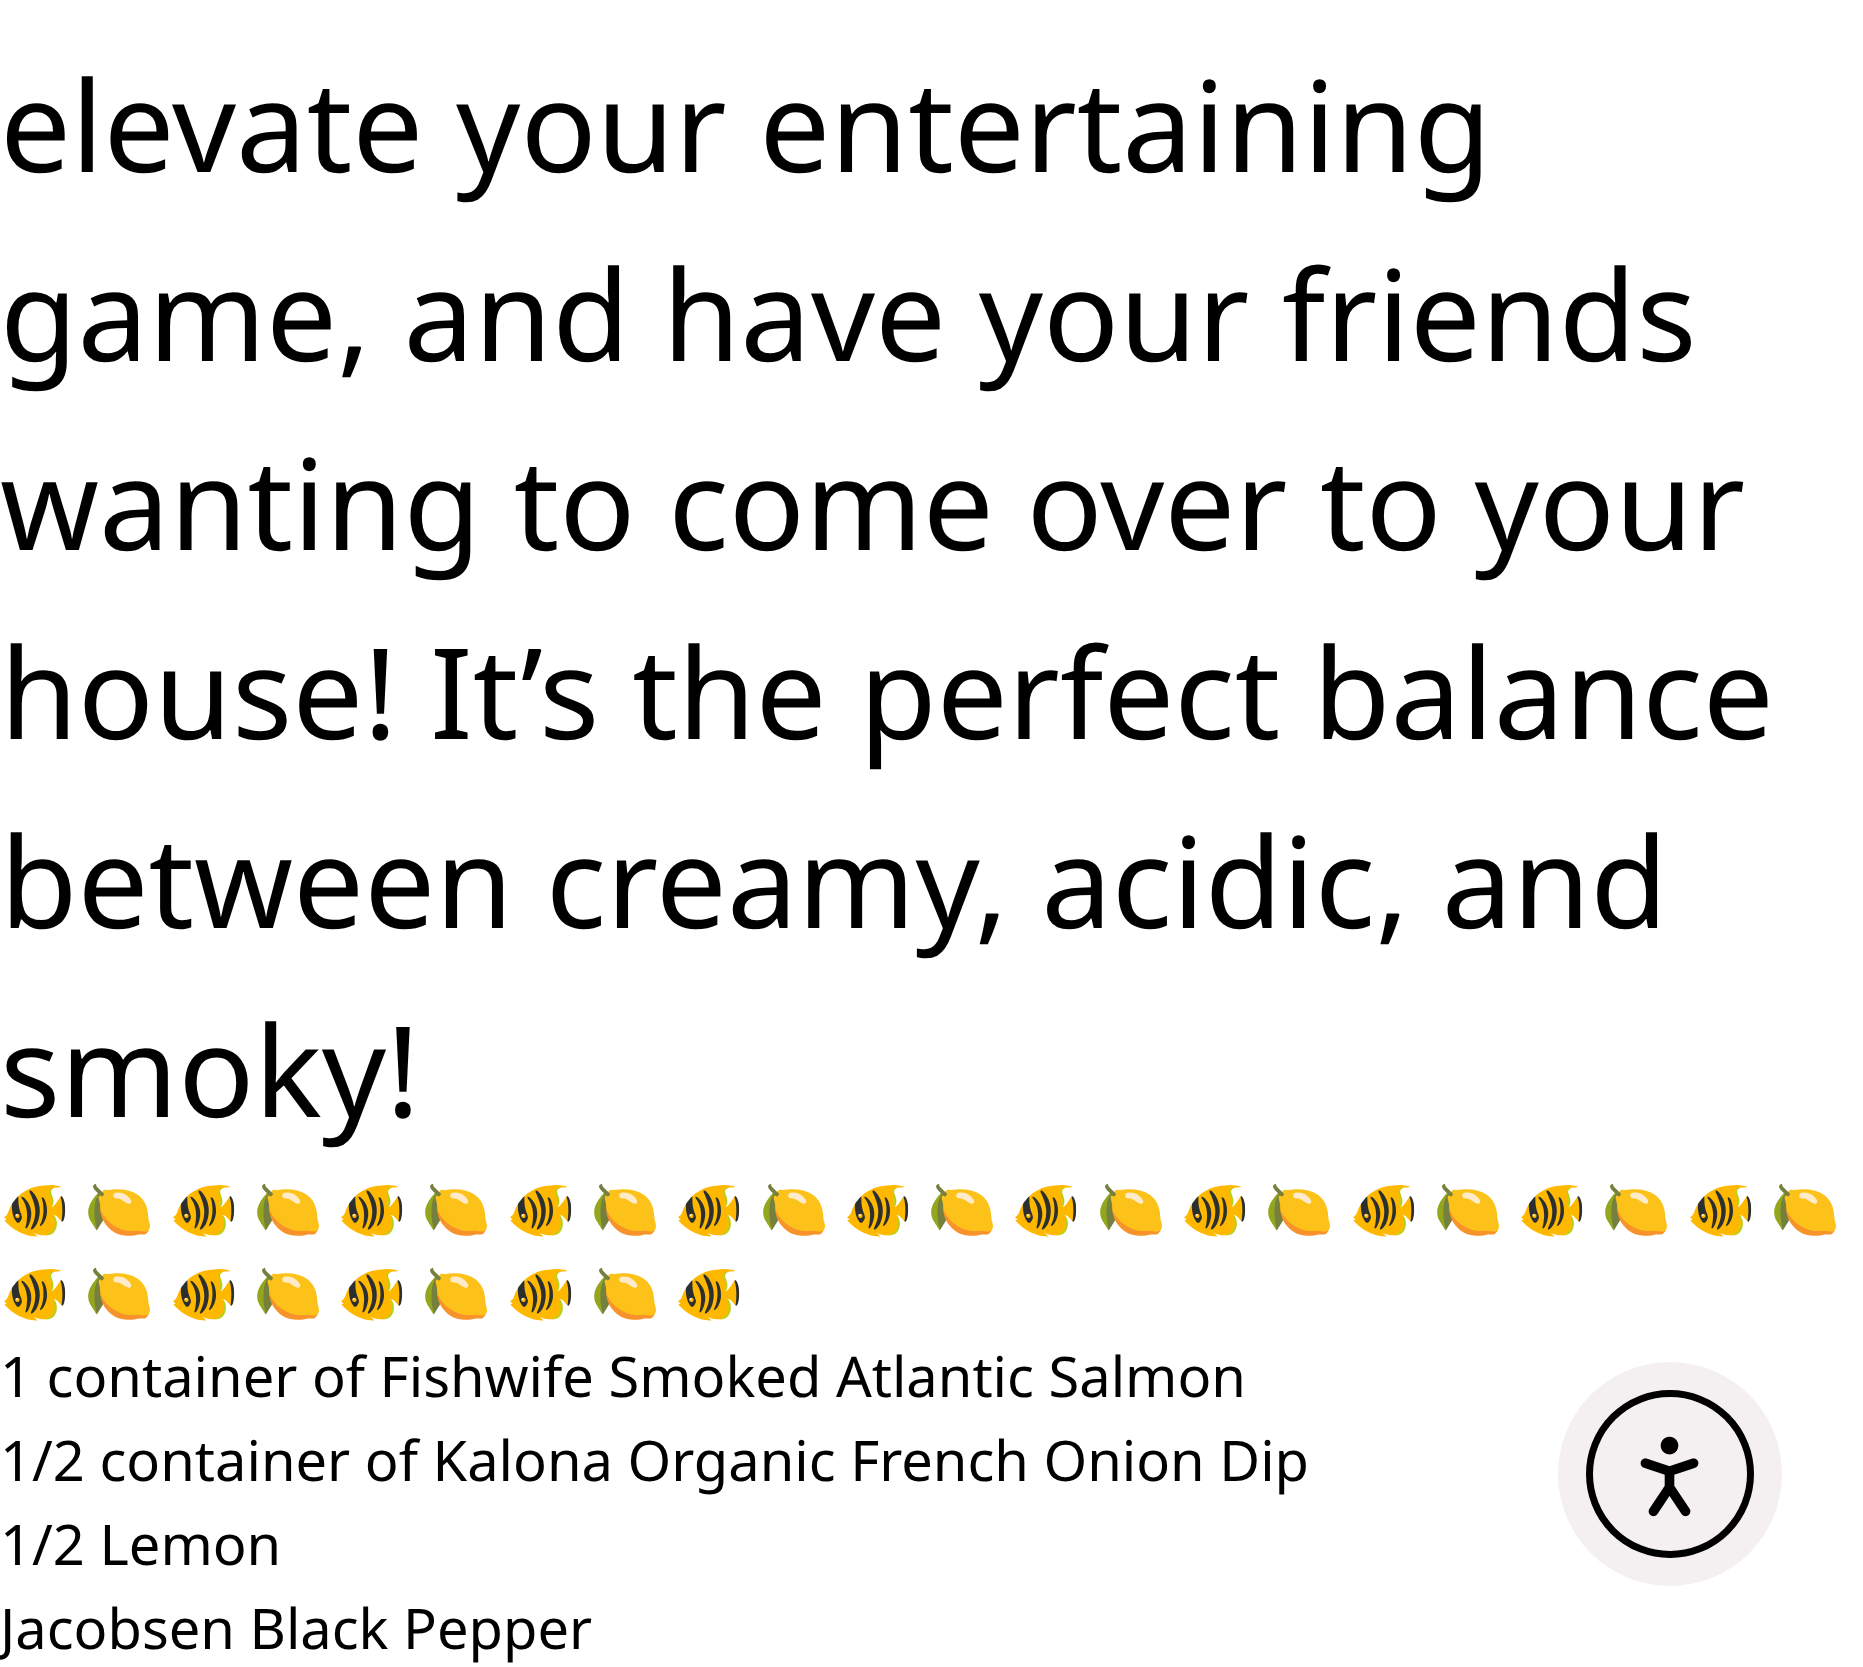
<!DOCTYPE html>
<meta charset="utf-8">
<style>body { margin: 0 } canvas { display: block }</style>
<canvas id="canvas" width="1863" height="1667"></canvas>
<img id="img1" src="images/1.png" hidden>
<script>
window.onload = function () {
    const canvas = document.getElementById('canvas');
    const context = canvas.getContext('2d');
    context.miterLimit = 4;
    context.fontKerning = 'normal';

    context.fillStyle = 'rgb(255, 255, 255)';
    context.fillRect(0, 0, 1863, 1667);
    context.fillStyle = 'rgb(244, 240, 241)';
    context.beginPath();
    context.arc(1670, 1474, 112, 0, 2 * Math.PI);
    context.fill();
    context.beginPath();
    context.arc(1670, 1474, 80.5, 0, 2 * Math.PI);
    context.strokeStyle = 'rgb(0, 0, 0)';
    context.lineWidth = 7;
    context.stroke();
    context.drawImage(document.getElementById('img1'), 1640, 1436, 59, 81);
    context.font = '126px Noto Sans';
    context.fillStyle = 'rgb(0, 0, 0)';
    context.fillText('elevate your entertaining', 0, 172);
    context.fillText('game, and have your friends', 0, 361);
    context.fillText('wanting to come over to your', 0, 550);
    context.fillText('house! It’s the perfect balance', 0, 739);
    context.fillText('between creamy, acidic, and', 0, 928);
    context.fillText('smoky!', 0, 1117);
    context.font = '56px Noto Color Emoji';
    context.fillText('🐠', 0, 1229);
    context.fillText('🍋', 84, 1229);
    context.fillText('🐠', 169, 1229);
    context.fillText('🍋', 253, 1229);
    context.fillText('🐠', 337, 1229);
    context.fillText('🍋', 421, 1229);
    context.fillText('🐠', 506, 1229);
    context.fillText('🍋', 590, 1229);
    context.fillText('🐠', 674, 1229);
    context.fillText('🍋', 759, 1229);
    context.fillText('🐠', 843, 1229);
    context.fillText('🍋', 927, 1229);
    context.fillText('🐠', 1011, 1229);
    context.fillText('🍋', 1096, 1229);
    context.fillText('🐠', 1180, 1229);
    context.fillText('🍋', 1264, 1229);
    context.fillText('🐠', 1349, 1229);
    context.fillText('🍋', 1433, 1229);
    context.fillText('🐠', 1517, 1229);
    context.fillText('🍋', 1601, 1229);
    context.fillText('🐠', 1686, 1229);
    context.fillText('🍋', 1770, 1229);
    context.fillText('🐠', 0, 1313);
    context.fillText('🍋', 84, 1313);
    context.fillText('🐠', 169, 1313);
    context.fillText('🍋', 253, 1313);
    context.fillText('🐠', 337, 1313);
    context.fillText('🍋', 421, 1313);
    context.fillText('🐠', 506, 1313);
    context.fillText('🍋', 590, 1313);
    context.fillText('🐠', 674, 1313);
    context.font = '56px Noto Sans';
    context.fillText('1 container of Fishwife Smoked Atlantic Salmon', 0, 1397);
    context.fillText('1/2 container of Kalona Organic French Onion Dip', 0, 1481);
    context.fillText('1/2 Lemon', 0, 1565);
    context.fillText('Jacobsen Black Pepper', 0, 1649);
};
</script>
